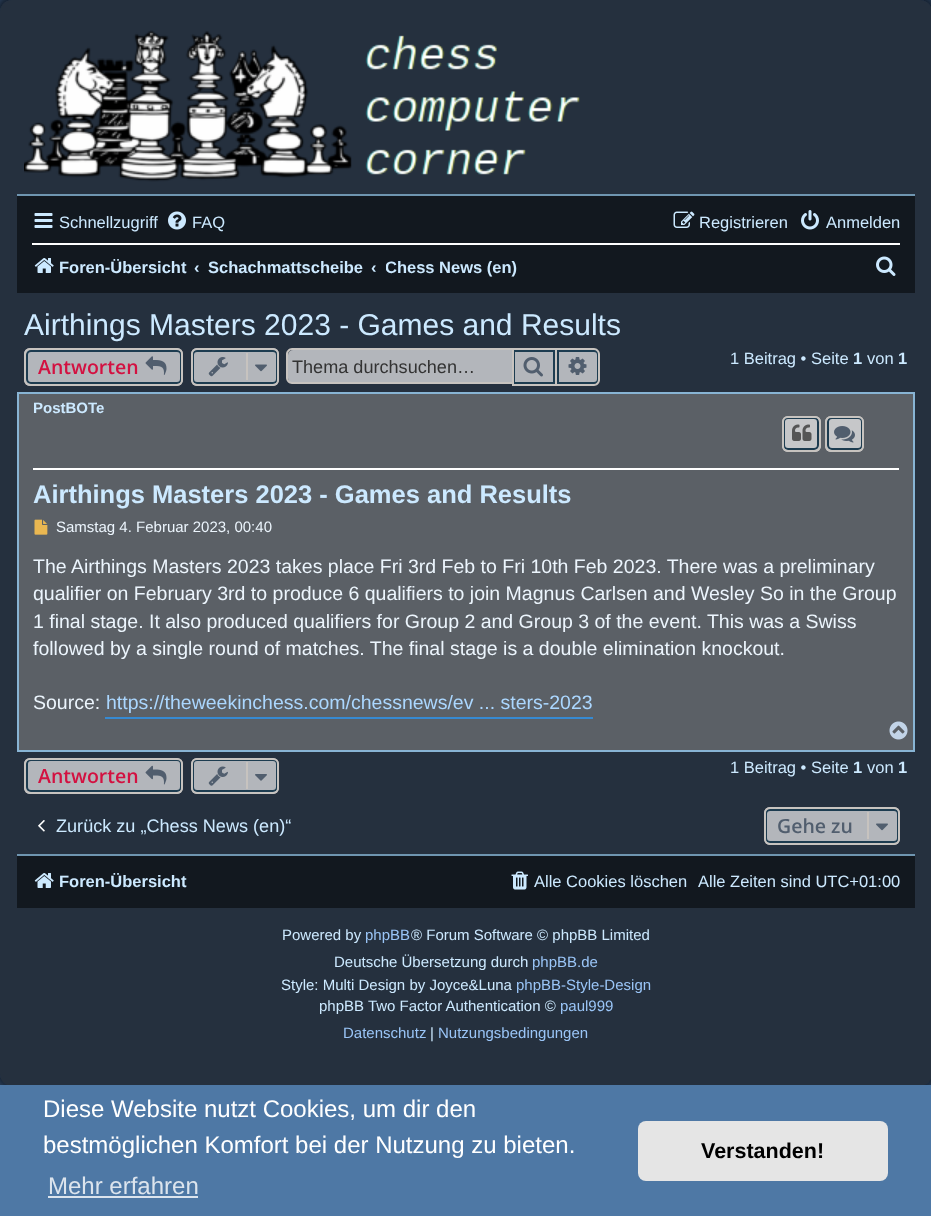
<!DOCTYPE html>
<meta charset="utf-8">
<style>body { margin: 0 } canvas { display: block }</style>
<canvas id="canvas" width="931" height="1216"></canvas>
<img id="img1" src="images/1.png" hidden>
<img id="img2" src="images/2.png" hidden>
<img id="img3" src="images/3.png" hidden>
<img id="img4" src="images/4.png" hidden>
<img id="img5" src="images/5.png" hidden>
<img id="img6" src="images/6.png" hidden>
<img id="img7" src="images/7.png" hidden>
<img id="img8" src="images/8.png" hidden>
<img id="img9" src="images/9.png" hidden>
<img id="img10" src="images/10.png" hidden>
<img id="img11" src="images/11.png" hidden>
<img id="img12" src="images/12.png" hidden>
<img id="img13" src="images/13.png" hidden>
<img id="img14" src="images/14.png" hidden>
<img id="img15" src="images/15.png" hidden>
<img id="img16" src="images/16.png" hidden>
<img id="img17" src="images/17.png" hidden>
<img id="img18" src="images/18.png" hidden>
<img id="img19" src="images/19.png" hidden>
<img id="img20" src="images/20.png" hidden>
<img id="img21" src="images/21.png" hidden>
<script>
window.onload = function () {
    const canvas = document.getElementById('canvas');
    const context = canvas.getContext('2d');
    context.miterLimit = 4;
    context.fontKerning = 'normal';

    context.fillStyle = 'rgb(46, 69, 99)';
    context.fillRect(0, 0, 931, 1216);
    context.save();
    context.beginPath();
    context.moveTo(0, 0);
    context.lineTo(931, 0);
    context.lineTo(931, 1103);
    context.lineTo(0, 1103);
    context.closePath();
    context.moveTo(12, 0);
    context.lineTo(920, 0);
    context.bezierCurveTo(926.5, 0, 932, 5.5, 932, 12);
    context.lineTo(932, 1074);
    context.bezierCurveTo(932, 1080.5, 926.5, 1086, 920, 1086);
    context.lineTo(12, 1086);
    context.bezierCurveTo(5.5, 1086, 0, 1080.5, 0, 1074);
    context.lineTo(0, 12);
    context.bezierCurveTo(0, 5.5, 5.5, 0, 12, 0);
    context.closePath();
    context.clip('evenodd');
    context.fillStyle = 'rgba(0, 0, 0, 0.62)';
    context.filter = 'blur(4.5px)';
    context.beginPath();
    context.roundRect(-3, -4, 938, 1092, 15);
    context.fill();
    context.filter = 'none';
    context.restore();
    context.fillStyle = 'rgba(28, 28, 28, 0.52)';
    context.beginPath();
    context.roundRect(0, 0, 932, 1086, 12);
    context.fill();
    context.drawImage(document.getElementById('img1'), 24, 30, 556, 152);
    context.fillStyle = 'rgb(18, 24, 31)';
    context.fillRect(17, 196, 898, 97);
    context.fillStyle = 'rgb(111, 149, 176)';
    context.fillRect(17, 194, 898, 2);
    context.drawImage(document.getElementById('img2'), 34, 213, 19, 15);
    context.drawImage(document.getElementById('img3'), 168, 211, 18, 19);
    context.drawImage(document.getElementById('img4'), 673, 211, 22, 17);
    context.drawImage(document.getElementById('img5'), 801, 210, 18, 20);
    context.fillStyle = 'rgb(255, 255, 255)';
    context.fillRect(32, 243, 868, 2);
    context.drawImage(document.getElementById('img6'), 34, 258, 20, 15);
    context.drawImage(document.getElementById('img7'), 876, 256, 20, 20);
    context.fillStyle = 'rgb(179, 182, 187)';
    context.beginPath();
    context.roundRect(24, 348, 159, 38, 6);
    context.fill();
    context.beginPath();
    context.roundRect(27, 351, 154, 32, 4);
    context.strokeStyle = 'rgb(29, 60, 80)';
    context.lineWidth = 2;
    context.stroke();
    context.beginPath();
    context.roundRect(25, 349, 157, 36, 5);
    context.strokeStyle = 'rgb(199, 195, 191)';
    context.stroke();
    context.drawImage(document.getElementById('img8'), 145, 356, 22, 19);
    context.beginPath();
    context.roundRect(191, 348, 88, 38, 6);
    context.fill();
    context.beginPath();
    context.roundRect(193, 351, 84, 32, 4);
    context.strokeStyle = 'rgb(29, 60, 80)';
    context.stroke();
    context.beginPath();
    context.roundRect(192, 349, 86, 36, 5);
    context.strokeStyle = 'rgb(199, 195, 191)';
    context.stroke();
    context.drawImage(document.getElementById('img9'), 208, 357, 20, 20);
    context.fillStyle = 'rgb(199, 195, 191)';
    context.fillRect(246, 353, 2, 27);
    context.drawImage(document.getElementById('img10'), 255, 364, 12, 8);
    context.fillStyle = 'rgb(179, 182, 187)';
    context.beginPath();
    context.roundRect(288, 350, 224, 33, [5, 0, 0, 5]);
    context.fill();
    context.fillStyle = 'rgb(199, 195, 191)';
    context.beginPath();
    context.moveTo(292, 348);
    context.lineTo(512, 348);
    context.lineTo(512, 384);
    context.lineTo(292, 384);
    context.bezierCurveTo(289, 384, 286, 381, 286, 378);
    context.lineTo(286, 354);
    context.bezierCurveTo(286, 351, 289, 348, 292, 348);
    context.closePath();
    context.moveTo(292, 350);
    context.lineTo(512, 350);
    context.lineTo(512, 382);
    context.lineTo(292, 382);
    context.bezierCurveTo(290, 382, 288, 380, 288, 378);
    context.lineTo(288, 354);
    context.bezierCurveTo(288, 352, 290, 350, 292, 350);
    context.closePath();
    context.fill('evenodd');
    context.fillStyle = 'rgb(179, 182, 187)';
    context.beginPath();
    context.rect(514, 351, 40, 32);
    context.fill();
    context.strokeStyle = 'rgb(29, 60, 80)';
    context.stroke();
    context.strokeStyle = 'rgb(199, 195, 191)';
    context.strokeRect(513, 349, 43, 36);
    context.drawImage(document.getElementById('img11'), 523, 357, 20, 20);
    context.beginPath();
    context.roundRect(558, 351, 40, 32, [0, 4, 4, 0]);
    context.fill();
    context.strokeStyle = 'rgb(29, 60, 80)';
    context.stroke();
    context.fillStyle = 'rgb(199, 195, 191)';
    context.beginPath();
    context.moveTo(556, 348);
    context.lineTo(594, 348);
    context.bezierCurveTo(597, 348, 600, 351, 600, 354);
    context.lineTo(600, 380);
    context.bezierCurveTo(600, 383, 597, 386, 594, 386);
    context.lineTo(556, 386);
    context.closePath();
    context.moveTo(556, 350);
    context.lineTo(594, 350);
    context.bezierCurveTo(596, 350, 598, 352, 598, 354);
    context.lineTo(598, 380);
    context.bezierCurveTo(598, 382, 596, 384, 594, 384);
    context.lineTo(556, 384);
    context.closePath();
    context.fill('evenodd');
    context.drawImage(document.getElementById('img12'), 568, 357, 19, 18);
    context.fillStyle = 'rgb(91, 96, 102)';
    context.beginPath();
    context.rect(18, 393, 896, 358);
    context.fill();
    context.strokeStyle = 'rgb(136, 180, 212)';
    context.stroke();
    context.fillStyle = 'rgb(255, 255, 255)';
    context.fillRect(33, 468, 866, 2);
    context.fillStyle = 'rgb(198, 199, 201)';
    context.beginPath();
    context.roundRect(782, 416, 39, 36, 6);
    context.fill();
    context.beginPath();
    context.roundRect(784, 418, 34, 31, 4);
    context.strokeStyle = 'rgb(29, 60, 80)';
    context.stroke();
    context.beginPath();
    context.roundRect(783, 417, 37, 34, 5);
    context.strokeStyle = 'rgb(199, 195, 191)';
    context.stroke();
    context.drawImage(document.getElementById('img13'), 792, 424, 20, 17);
    context.beginPath();
    context.roundRect(825, 416, 39, 36, 6);
    context.fill();
    context.beginPath();
    context.roundRect(828, 418, 34, 31, 4);
    context.strokeStyle = 'rgb(29, 60, 80)';
    context.stroke();
    context.beginPath();
    context.roundRect(826, 417, 37, 34, 5);
    context.strokeStyle = 'rgb(199, 195, 191)';
    context.stroke();
    context.drawImage(document.getElementById('img14'), 834, 426, 21, 17);
    context.drawImage(document.getElementById('img15'), 34, 519, 14, 16);
    context.fillStyle = 'rgb(54, 138, 210)';
    context.fillRect(105, 717, 488, 2);
    context.drawImage(document.getElementById('img16'), 889, 721, 19, 19);
    context.fillStyle = 'rgb(179, 182, 187)';
    context.beginPath();
    context.roundRect(24, 758, 159, 36, 6);
    context.fill();
    context.beginPath();
    context.roundRect(27, 760, 154, 31, 4);
    context.strokeStyle = 'rgb(29, 60, 80)';
    context.stroke();
    context.beginPath();
    context.roundRect(25, 759, 157, 34, 5);
    context.strokeStyle = 'rgb(199, 195, 191)';
    context.stroke();
    context.drawImage(document.getElementById('img17'), 145, 765, 22, 20);
    context.beginPath();
    context.roundRect(191, 758, 88, 36, 6);
    context.fill();
    context.beginPath();
    context.roundRect(193, 760, 84, 31, 4);
    context.strokeStyle = 'rgb(29, 60, 80)';
    context.stroke();
    context.beginPath();
    context.roundRect(192, 759, 86, 34, 5);
    context.strokeStyle = 'rgb(199, 195, 191)';
    context.stroke();
    context.drawImage(document.getElementById('img18'), 208, 766, 20, 20);
    context.fillStyle = 'rgb(199, 195, 191)';
    context.fillRect(246, 762, 2, 27);
    context.drawImage(document.getElementById('img19'), 255, 774, 12, 7);
    context.drawImage(document.getElementById('img20'), 38, 820, 7, 12);
    context.fillStyle = 'rgb(179, 182, 187)';
    context.beginPath();
    context.roundRect(764, 807, 136, 38, 6);
    context.fill();
    context.beginPath();
    context.roundRect(766, 810, 132, 32, 4);
    context.strokeStyle = 'rgb(29, 60, 80)';
    context.stroke();
    context.beginPath();
    context.roundRect(765, 808, 134, 36, 5);
    context.strokeStyle = 'rgb(199, 195, 191)';
    context.stroke();
    context.fillStyle = 'rgb(199, 195, 191)';
    context.fillRect(867, 812, 2, 27);
    context.drawImage(document.getElementById('img10'), 876, 823, 12, 8);
    context.fillStyle = 'rgb(18, 24, 31)';
    context.fillRect(17, 856, 898, 52);
    context.fillStyle = 'rgb(111, 149, 176)';
    context.fillRect(17, 854, 898, 2);
    context.drawImage(document.getElementById('img6'), 34, 873, 20, 15);
    context.drawImage(document.getElementById('img21'), 511, 871, 17, 19);
    context.fillStyle = 'rgb(78, 120, 165)';
    context.fillRect(0, 1085, 931, 131);
    context.fillStyle = 'rgb(220, 228, 237)';
    context.fillRect(48, 1196, 150, 2);
    context.fillStyle = 'rgb(229, 229, 229)';
    context.beginPath();
    context.roundRect(638, 1121, 250, 60, 8);
    context.fill();
    context.font = '16.5px Liberation Sans';
    context.fillStyle = 'rgb(204, 233, 255)';
    context.fillText('Schnellzugriff', 59, 228);
    context.fillText('FAQ', 192, 228);
    context.fillText('Registrieren', 699, 228);
    context.fillText('Anmelden', 826, 228);
    context.font = 'bold 16.5px Liberation Sans';
    context.fillText('Foren-Übersicht', 59, 273);
    context.fillText('‹', 194, 273);
    context.fillText('Schachmattscheibe', 208, 273);
    context.fillText('‹', 371, 273);
    context.save();
    context.beginPath();
    context.rect(386, 249, 132, 36);
    context.clip();
    context.fillText('Chess News (en)', 385, 273);
    context.restore();
    context.font = '30px Liberation Sans';
    context.fillText('Airthings Masters 2023 - Games and Results', 24, 335);
    context.font = '600 19.5px Open Sans';
    context.fillStyle = 'rgb(211, 17, 65)';
    context.fillText('Antworten', 38, 374);
    context.font = '18.1px Liberation Sans';
    context.fillStyle = 'rgb(51, 51, 51)';
    context.fillText('Thema durchsuchen…', 292, 373);
    context.font = '16.5px Liberation Sans';
    context.fillStyle = 'rgb(204, 233, 255)';
    context.fillText('1 Beitrag • Seite', 730, 364);
    context.font = 'bold 16.5px Liberation Sans';
    context.fillText('1', 853, 364);
    context.font = '16.5px Liberation Sans';
    context.fillText('von', 867, 364);
    context.font = 'bold 16.5px Liberation Sans';
    context.fillText('1', 898, 364);
    context.font = 'bold 15px Liberation Sans';
    context.fillText('PostBOTe', 33, 413);
    context.font = 'bold 25.5px Liberation Sans';
    context.fillText('Airthings Masters 2023 - Games and Results', 33, 503);
    context.font = '15px Liberation Sans';
    context.fillStyle = 'rgb(236, 245, 253)';
    context.fillText('Samstag 4. Februar 2023, 00:40', 56, 532);
    context.font = '19.5px Liberation Sans';
    context.fillText('The Airthings Masters 2023 takes place Fri 3rd Feb to Fri 10th Feb 2023. There was a preliminary', 33, 573);
    context.fillText('qualifier on February 3rd to produce 6 qualifiers to join Magnus Carlsen and Wesley So in the Group', 33, 600);
    context.fillText('1 final stage. It also produced qualifiers for Group 2 and Group 3 of the event. This was a Swiss', 33, 628);
    context.fillText('followed by a single round of matches. The final stage is a double elimination knockout.', 33, 655);
    context.fillText('Source:', 33, 709);
    context.fillStyle = 'rgb(171, 215, 255)';
    context.fillText('https://theweekinchess.com/chessnews/ev ... sters-2023', 106, 709);
    context.font = '600 19.5px Open Sans';
    context.fillStyle = 'rgb(211, 17, 65)';
    context.fillText('Antworten', 38, 783);
    context.font = '16.5px Liberation Sans';
    context.fillStyle = 'rgb(204, 233, 255)';
    context.fillText('1 Beitrag • Seite', 730, 773);
    context.font = 'bold 16.5px Liberation Sans';
    context.fillText('1', 853, 773);
    context.font = '16.5px Liberation Sans';
    context.fillText('von', 867, 773);
    context.font = 'bold 16.5px Liberation Sans';
    context.fillText('1', 898, 773);
    context.font = '18.1px Liberation Sans';
    context.fillText('Zurück zu „Chess News (en)“', 56, 832);
    context.font = '600 19.5px Open Sans';
    context.fillStyle = 'rgb(81, 94, 110)';
    context.fillText('Gehe zu', 777, 833);
    context.font = 'bold 16.5px Liberation Sans';
    context.fillStyle = 'rgb(204, 233, 255)';
    context.fillText('Foren-Übersicht', 59, 887);
    context.font = '16.5px Liberation Sans';
    context.fillText('Alle Cookies löschen', 534, 887);
    context.fillText('Alle Zeiten sind UTC+01:00', 698, 887);
    context.font = '15px Liberation Sans';
    context.fillText('Powered by', 282, 940);
    context.fillStyle = 'rgb(154, 197, 247)';
    context.fillText('phpBB', 365, 940);
    context.fillStyle = 'rgb(204, 233, 255)';
    context.fillText('® Forum Software © phpBB Limited', 411, 940);
    context.fillText('Deutsche Übersetzung durch', 334, 967);
    context.fillStyle = 'rgb(154, 197, 247)';
    context.fillText('phpBB.de', 532, 967);
    context.fillStyle = 'rgb(204, 233, 255)';
    context.fillText('Style: Multi Design by Joyce&Luna', 281, 990);
    context.fillStyle = 'rgb(154, 197, 247)';
    context.fillText('phpBB-Style-Design', 516, 990);
    context.fillStyle = 'rgb(204, 233, 255)';
    context.fillText('phpBB Two Factor Authentication ©', 319, 1011);
    context.fillStyle = 'rgb(154, 197, 247)';
    context.fillText('paul999', 560, 1011);
    context.fillText('Datenschutz', 343, 1038);
    context.fillStyle = 'rgb(204, 233, 255)';
    context.fillText('|', 430, 1038);
    context.fillStyle = 'rgb(154, 197, 247)';
    context.fillText('Nutzungsbedingungen', 438, 1038);
    context.font = '24px Liberation Sans';
    context.fillStyle = 'rgb(255, 255, 255)';
    context.fillText('Diese Website nutzt Cookies, um dir den', 43, 1117);
    context.fillText('bestmöglichen Komfort bei der Nutzung zu bieten.', 43, 1153);
    context.fillStyle = 'rgb(220, 228, 237)';
    context.fillText('Mehr erfahren', 48, 1194);
    context.font = 'bold 21.5px Liberation Sans';
    context.fillStyle = 'rgb(0, 0, 0)';
    context.fillText('Verstanden!', 701, 1158);
};
</script>
